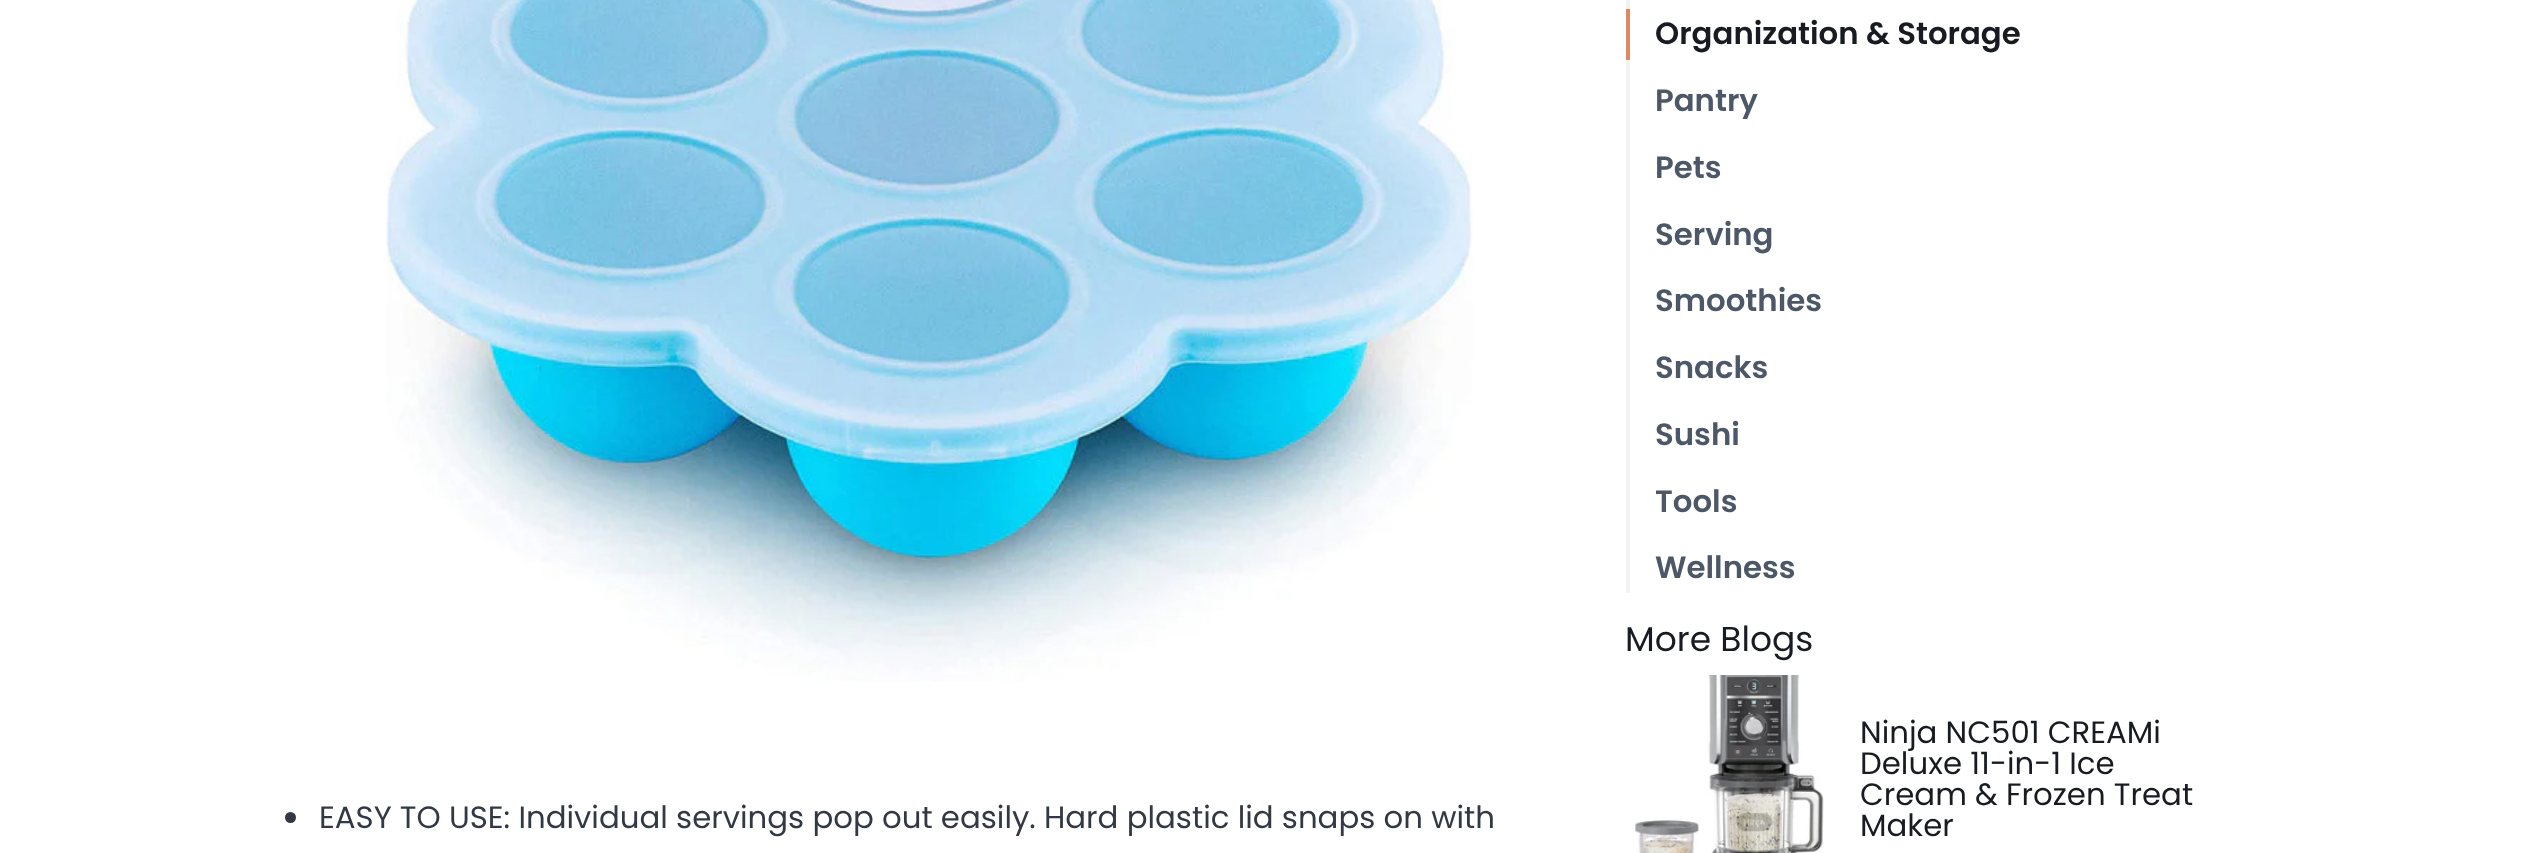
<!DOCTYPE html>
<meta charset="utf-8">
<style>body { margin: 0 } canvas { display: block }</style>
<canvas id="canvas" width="2526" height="853"></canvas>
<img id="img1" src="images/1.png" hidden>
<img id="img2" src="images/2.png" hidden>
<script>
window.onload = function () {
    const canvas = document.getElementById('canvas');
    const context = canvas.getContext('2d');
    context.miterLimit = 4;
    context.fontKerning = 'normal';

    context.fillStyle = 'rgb(255, 255, 255)';
    context.fillRect(0, 0, 2526, 853);
    context.drawImage(document.getElementById('img1'), 386, 0, 1087, 682);
    context.fillStyle = 'rgb(50, 57, 68)';
    context.beginPath();
    context.arc(290.5, 817.5, 5.5, 0, 2 * Math.PI);
    context.fill();
    context.fillStyle = 'rgb(242, 242, 242)';
    context.fillRect(1626, 0, 4, 9);
    context.fillRect(1626, 60, 4, 533);
    context.fillStyle = 'rgb(221, 138, 100)';
    context.fillRect(1626, 9, 4, 51);
    context.drawImage(document.getElementById('img2'), 1635, 675, 189, 178);
    context.font = '30.8px Poppins';
    context.fillStyle = 'rgb(50, 57, 68)';
    context.fillText('EASY TO USE: Individual servings pop out easily. Hard plastic lid snaps on with', 319, 828);
    context.font = '600 30.8px Poppins';
    context.fillStyle = 'rgb(24, 27, 33)';
    context.fillText('Organization & Storage', 1655, 44);
    context.fillStyle = 'rgb(76, 87, 103)';
    context.fillText('Pantry', 1655, 111);
    context.fillText('Pets', 1655, 178);
    context.fillText('Serving', 1655, 245);
    context.fillText('Smoothies', 1655, 311);
    context.fillText('Snacks', 1655, 378);
    context.fillText('Sushi', 1655, 445);
    context.fillText('Tools', 1655, 512);
    context.fillText('Wellness', 1655, 578);
    context.font = '34.5px Poppins';
    context.fillStyle = 'rgb(24, 27, 33)';
    context.fillText('More Blogs', 1625, 651);
    context.font = '30.8px Poppins';
    context.fillText('Ninja NC501 CREAMi', 1860, 743);
    context.fillText('Deluxe 11-in-1 Ice', 1860, 774);
    context.fillText('Cream & Frozen Treat', 1860, 805);
    context.fillText('Maker', 1860, 836);
};
</script>
